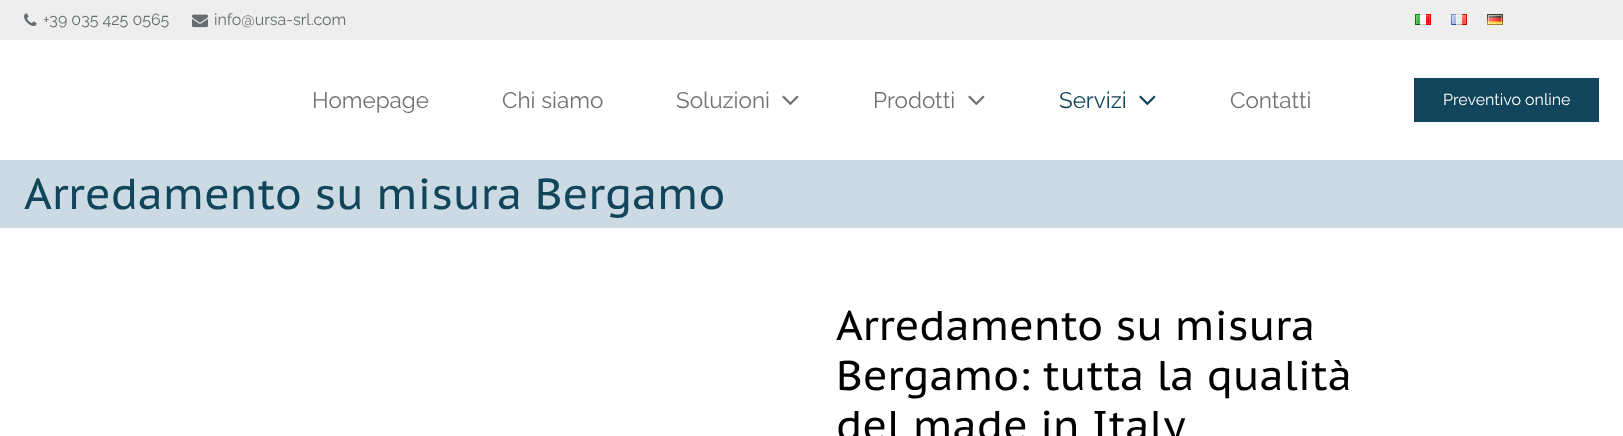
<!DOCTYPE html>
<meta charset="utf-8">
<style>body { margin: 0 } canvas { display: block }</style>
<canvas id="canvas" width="1623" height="436"></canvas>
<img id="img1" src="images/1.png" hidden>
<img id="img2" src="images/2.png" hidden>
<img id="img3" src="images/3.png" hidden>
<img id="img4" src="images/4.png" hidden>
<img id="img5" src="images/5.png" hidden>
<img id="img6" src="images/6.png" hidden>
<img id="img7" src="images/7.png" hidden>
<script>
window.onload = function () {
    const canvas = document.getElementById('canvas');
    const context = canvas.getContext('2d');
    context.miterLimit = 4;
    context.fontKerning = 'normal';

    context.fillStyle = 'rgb(255, 255, 255)';
    context.fillRect(0, 0, 1623, 436);
    context.fillStyle = 'rgb(238, 238, 238)';
    context.fillRect(0, 0, 1623, 40);
    context.drawImage(document.getElementById('img1'), 24, 13, 13, 13);
    context.drawImage(document.getElementById('img2'), 192, 14, 16, 14);
    context.drawImage(document.getElementById('img3'), 1415, 14, 16, 11);
    context.drawImage(document.getElementById('img4'), 1451, 14, 16, 11);
    context.drawImage(document.getElementById('img5'), 1487, 14, 16, 11);
    context.drawImage(document.getElementById('img6'), 782, 95, 17, 11);
    context.drawImage(document.getElementById('img6'), 968, 95, 17, 11);
    context.drawImage(document.getElementById('img7'), 1139, 95, 17, 11);
    context.fillStyle = 'rgb(16, 69, 91)';
    context.fillRect(1414, 78, 185, 44);
    context.fillStyle = 'rgb(204, 219, 227)';
    context.fillRect(0, 160, 1623, 68);
    context.font = '16px Raleway';
    context.fillStyle = 'rgb(102, 109, 112)';
    context.fillText('+39 035 425 0565', 43, 25);
    context.fillText('info@ursa-srl.com', 214, 25);
    context.font = '22.5px Raleway';
    context.fillStyle = 'rgb(113, 113, 109)';
    context.fillText('Homepage', 312, 108);
    context.fillText('Chi siamo', 502, 108);
    context.fillText('Soluzioni', 676, 108);
    context.fillText('Prodotti', 873, 108);
    context.fillStyle = 'rgb(16, 69, 91)';
    context.fillText('Servizi', 1059, 108);
    context.fillStyle = 'rgb(113, 113, 109)';
    context.fillText('Contatti', 1230, 108);
    context.font = '16px Raleway';
    context.fillStyle = 'rgb(255, 255, 255)';
    context.fillText('Preventivo online', 1443, 105);
    context.font = '43.25px PT Sans Caption';
    context.fillStyle = 'rgb(16, 69, 91)';
    context.fillText('Arredamento su misura Bergamo', 24, 209);
    context.font = '41.6px PT Sans Caption';
    context.fillStyle = 'rgb(0, 0, 0)';
    context.fillText('Arredamento su misura', 836, 340);
    context.fillText('Bergamo: tutta la qualità', 836, 390);
    context.fillText('del made in Italy', 836, 440);
};
</script>
